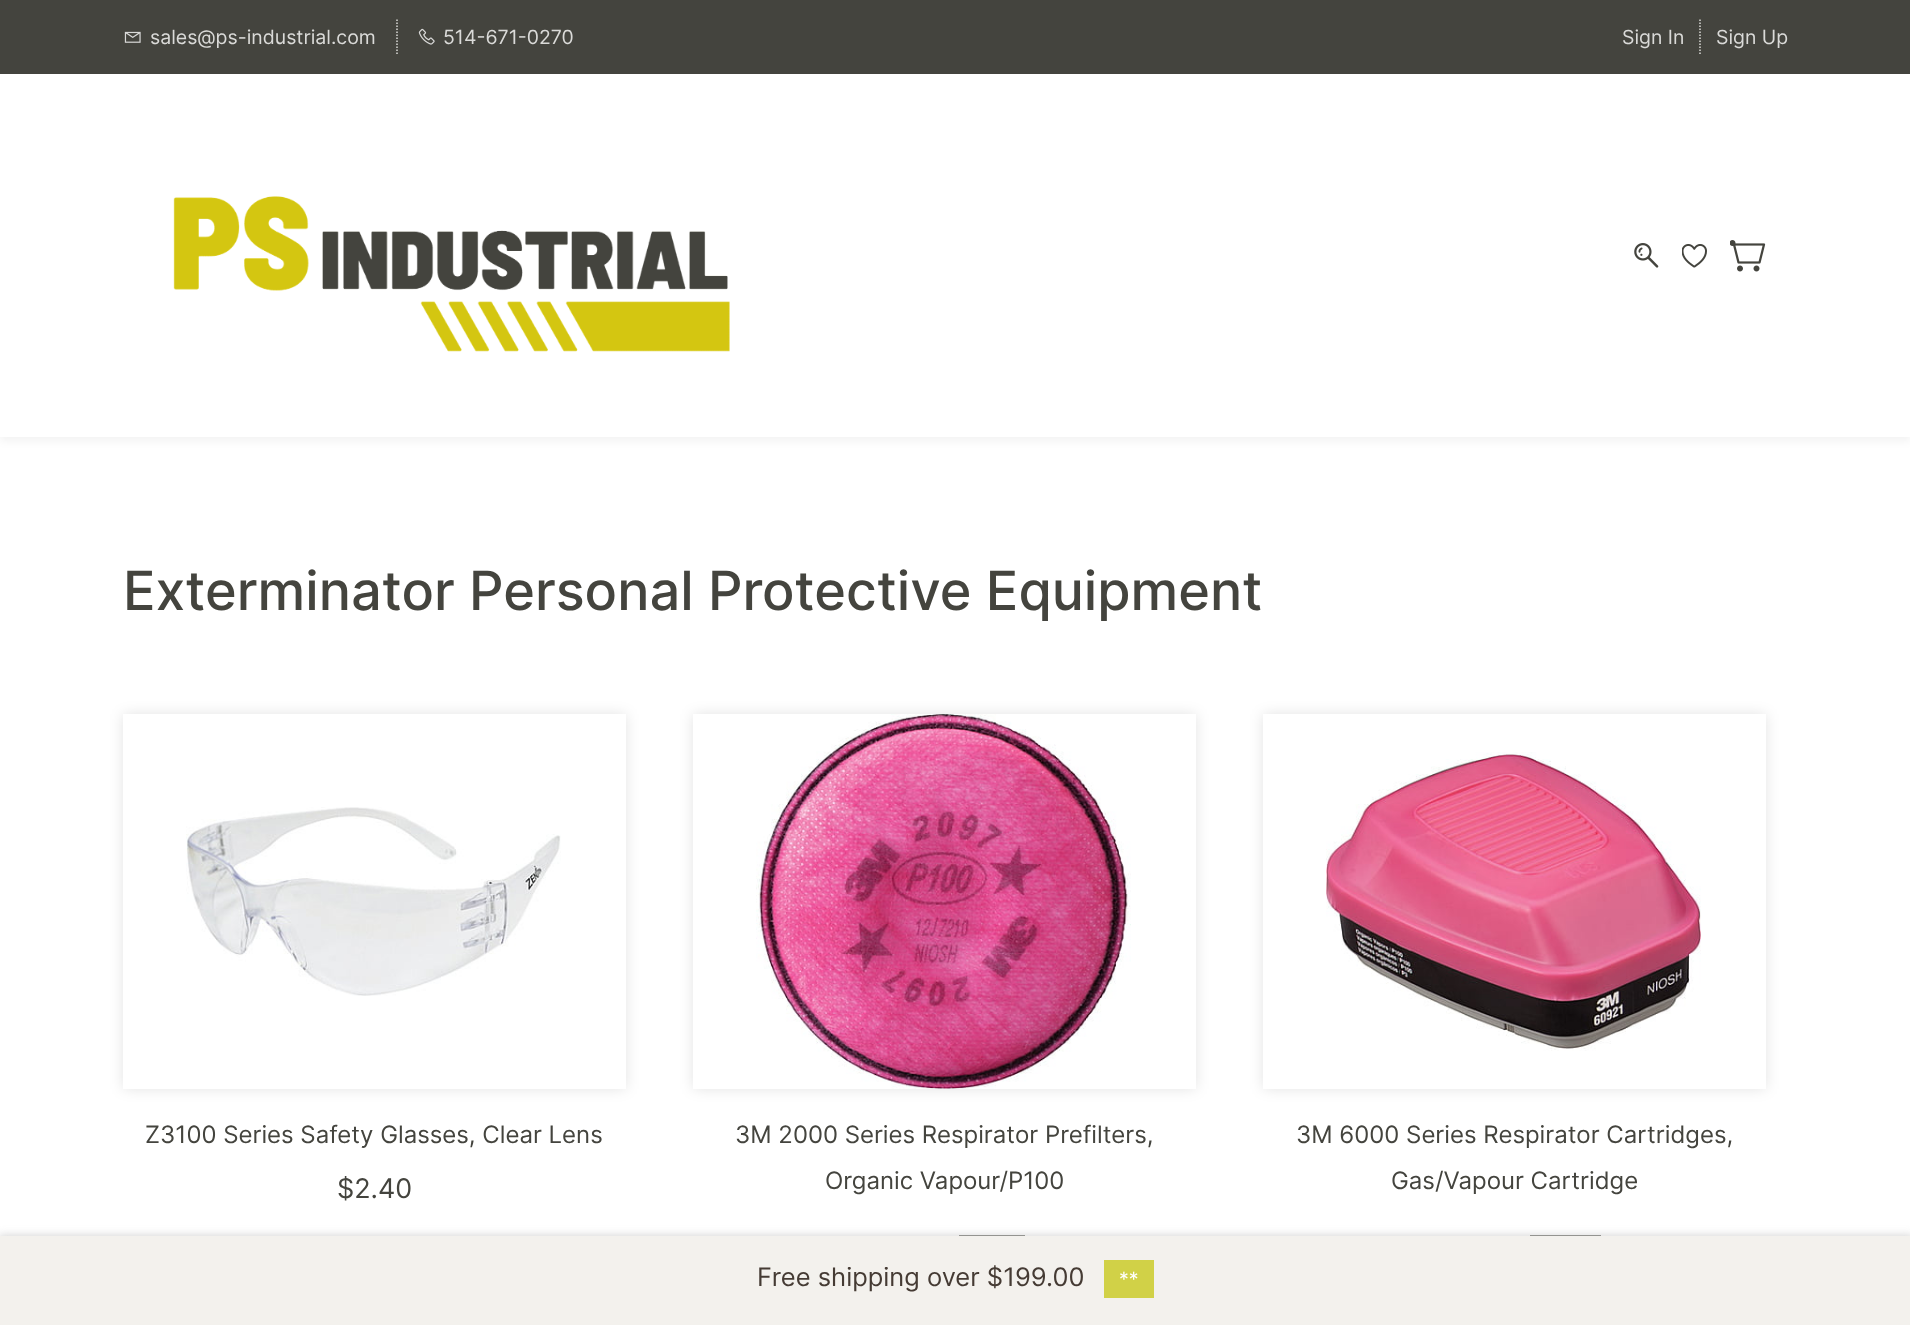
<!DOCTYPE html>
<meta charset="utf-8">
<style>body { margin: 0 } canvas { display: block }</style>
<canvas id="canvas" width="1910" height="1325"></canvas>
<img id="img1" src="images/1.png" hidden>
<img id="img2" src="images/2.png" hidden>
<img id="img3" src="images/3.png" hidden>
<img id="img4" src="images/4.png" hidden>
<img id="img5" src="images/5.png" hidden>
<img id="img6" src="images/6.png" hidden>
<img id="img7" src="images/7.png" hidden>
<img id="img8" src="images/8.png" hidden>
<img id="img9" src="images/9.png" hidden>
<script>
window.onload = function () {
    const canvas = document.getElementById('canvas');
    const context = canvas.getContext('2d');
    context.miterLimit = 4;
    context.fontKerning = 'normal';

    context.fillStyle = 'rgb(255, 255, 255)';
    context.fillRect(0, 0, 1910, 1325);
    context.fillStyle = 'rgba(0, 0, 0, 0.05)';
    context.filter = 'blur(4px)';
    context.beginPath();
    context.rect(0, 5, 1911, 436);
    context.fill();
    context.filter = 'none';
    context.fillStyle = 'rgb(68, 68, 62)';
    context.fillRect(0, 0, 1910, 74);
    context.drawImage(document.getElementById('img1'), 124, 31, 17, 12);
    context.beginPath();
    context.moveTo(397, 19.5);
    context.lineTo(397, 54);
    context.strokeStyle = 'rgb(218, 218, 216)';
    context.lineWidth = 1.5;
    context.setLineDash([1.5, 1.5]);
    context.stroke();
    context.drawImage(document.getElementById('img2'), 418, 28, 17, 17);
    context.beginPath();
    context.moveTo(1700, 19.5);
    context.lineTo(1700, 54);
    context.stroke();
    context.fillStyle = 'rgb(255, 255, 255)';
    context.fillRect(0, 74, 1910, 363);
    context.drawImage(document.getElementById('img3'), 173, 196, 557, 156);
    context.drawImage(document.getElementById('img4'), 1634, 243, 25, 25);
    context.drawImage(document.getElementById('img5'), 1682, 244, 25, 24);
    context.drawImage(document.getElementById('img6'), 1730, 240, 36, 32);
    context.fillStyle = 'rgba(0, 0, 0, 0.11)';
    context.filter = 'blur(7px)';
    context.beginPath();
    context.rect(123, 714, 503, 375);
    context.fill();
    context.filter = 'none';
    context.fillStyle = 'rgb(255, 255, 255)';
    context.fillRect(123, 714, 503, 375);
    context.drawImage(document.getElementById('img7'), 186, 807, 375, 189);
    context.fillStyle = 'rgba(0, 0, 0, 0.11)';
    context.filter = 'blur(7px)';
    context.beginPath();
    context.rect(693, 714, 503, 375);
    context.fill();
    context.filter = 'none';
    context.fillStyle = 'rgb(255, 255, 255)';
    context.fillRect(693, 714, 503, 375);
    context.drawImage(document.getElementById('img8'), 756, 714, 375, 375);
    context.fillStyle = 'rgb(68, 68, 62)';
    context.fillRect(959, 1235, 66, 1);
    context.fillStyle = 'rgba(0, 0, 0, 0.11)';
    context.filter = 'blur(7px)';
    context.beginPath();
    context.rect(1263, 714, 503, 375);
    context.fill();
    context.filter = 'none';
    context.fillStyle = 'rgb(255, 255, 255)';
    context.fillRect(1263, 714, 503, 375);
    context.drawImage(document.getElementById('img9'), 1326, 752, 375, 299);
    context.fillStyle = 'rgb(68, 68, 62)';
    context.fillRect(1530, 1235, 71, 1);
    context.fillStyle = 'rgb(214, 214, 214)';
    context.filter = 'blur(4px)';
    context.beginPath();
    context.rect(-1, 1235, 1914, 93);
    context.fill();
    context.filter = 'none';
    context.fillStyle = 'rgb(243, 241, 237)';
    context.fillRect(0, 1236, 1910, 89);
    context.fillStyle = 'rgb(209, 209, 71)';
    context.fillRect(1104, 1260, 50, 38);
    context.font = '19.5px Inter';
    context.fillStyle = 'rgb(218, 218, 216)';
    context.fillText('sales@ps-industrial.com', 150, 44);
    context.fillText('514-671-0270', 443, 44);
    context.fillText('Sign In', 1622, 44);
    context.fillText('Sign Up', 1716, 44);
    context.font = '500 54px Inter';
    context.fillStyle = 'rgb(68, 68, 62)';
    context.fillText('Exterminator Personal Protective Equipment', 123, 610);
    context.font = '24px Inter';
    context.fillText('Z3100 Series Safety Glasses, Clear Lens', 145, 1143);
    context.font = '27px Inter';
    context.fillText('$2.40', 337, 1198);
    context.font = '24px Inter';
    context.fillText('3M 2000 Series Respirator Prefilters,', 735, 1143);
    context.fillText('Organic Vapour/P100', 825, 1189);
    context.fillText('3M 6000 Series Respirator Cartridges,', 1296, 1143);
    context.fillText('Gas/Vapour Cartridge', 1391, 1189);
    context.font = '25.5px Inter';
    context.fillStyle = 'rgb(69, 59, 52)';
    context.fillText('Free shipping over $199.00', 757, 1286);
    context.font = '19.5px Inter';
    context.fillStyle = 'rgb(255, 255, 255)';
    context.fillText('**', 1119, 1286);
};
</script>
